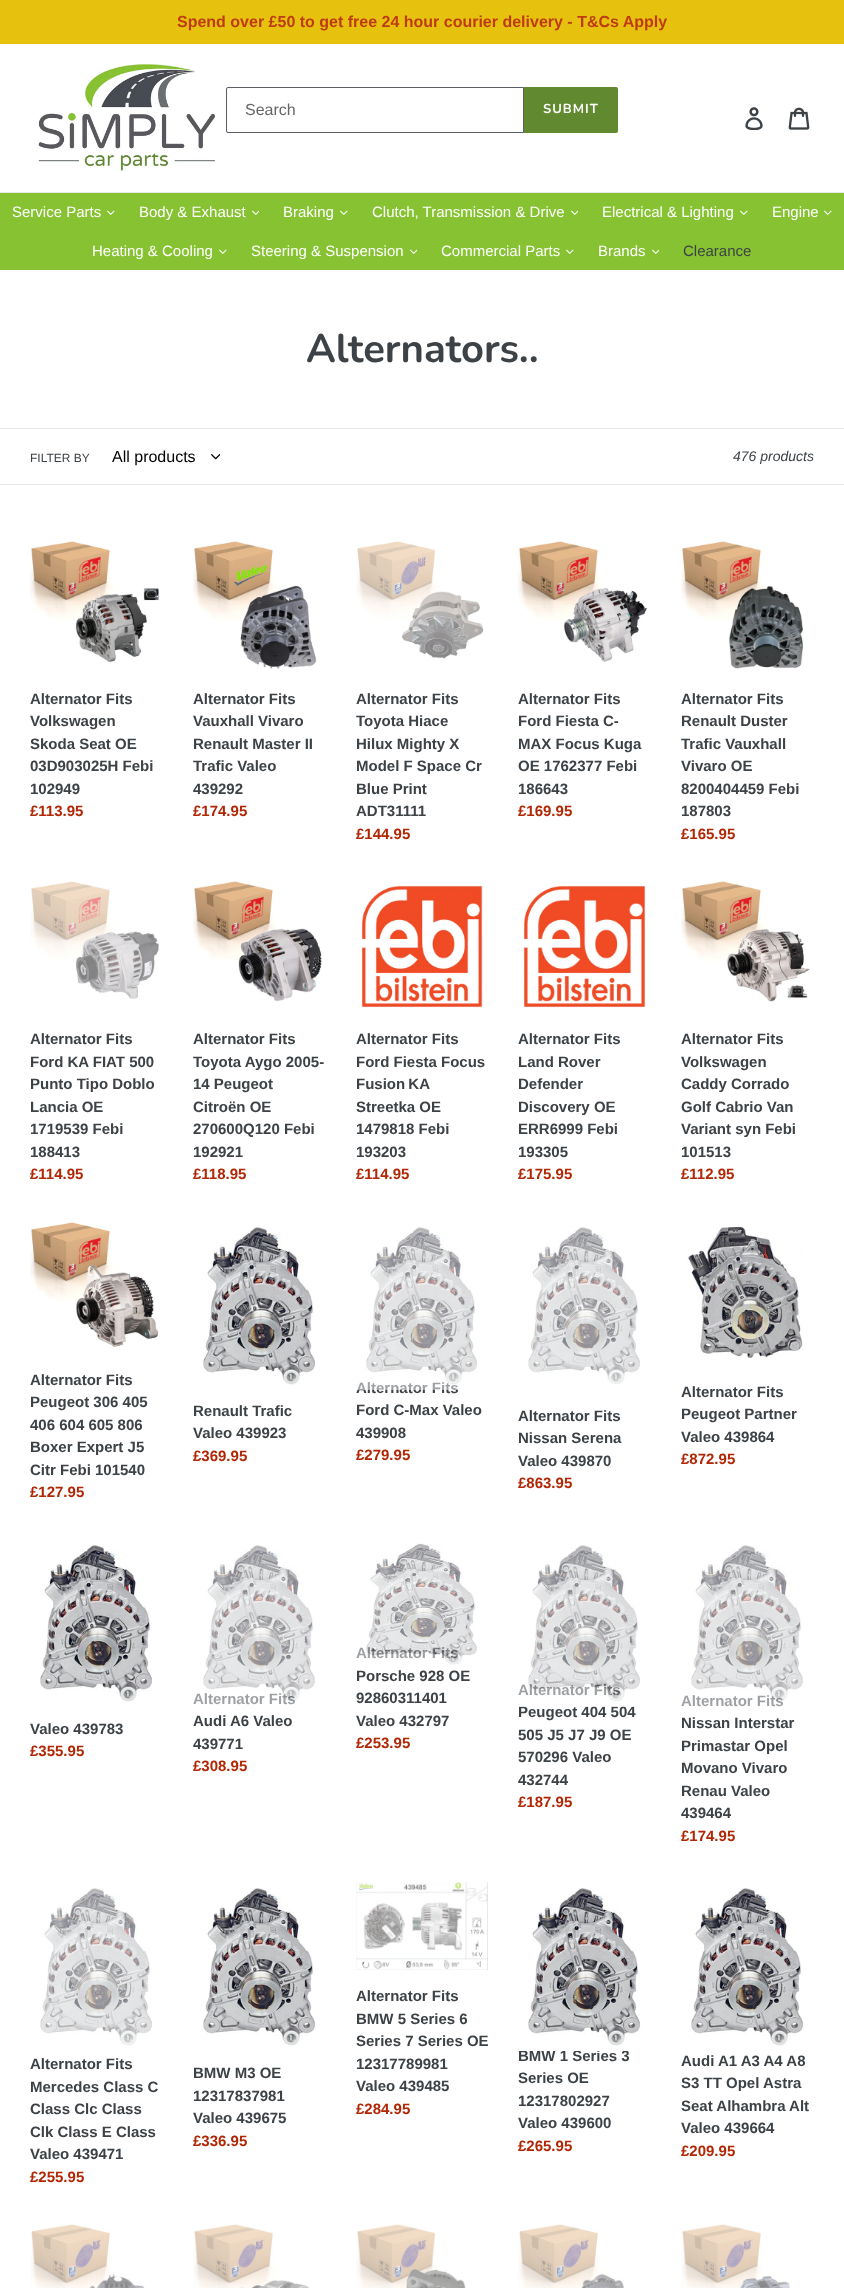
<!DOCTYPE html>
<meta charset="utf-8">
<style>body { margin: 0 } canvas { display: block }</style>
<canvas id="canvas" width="844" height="2288"></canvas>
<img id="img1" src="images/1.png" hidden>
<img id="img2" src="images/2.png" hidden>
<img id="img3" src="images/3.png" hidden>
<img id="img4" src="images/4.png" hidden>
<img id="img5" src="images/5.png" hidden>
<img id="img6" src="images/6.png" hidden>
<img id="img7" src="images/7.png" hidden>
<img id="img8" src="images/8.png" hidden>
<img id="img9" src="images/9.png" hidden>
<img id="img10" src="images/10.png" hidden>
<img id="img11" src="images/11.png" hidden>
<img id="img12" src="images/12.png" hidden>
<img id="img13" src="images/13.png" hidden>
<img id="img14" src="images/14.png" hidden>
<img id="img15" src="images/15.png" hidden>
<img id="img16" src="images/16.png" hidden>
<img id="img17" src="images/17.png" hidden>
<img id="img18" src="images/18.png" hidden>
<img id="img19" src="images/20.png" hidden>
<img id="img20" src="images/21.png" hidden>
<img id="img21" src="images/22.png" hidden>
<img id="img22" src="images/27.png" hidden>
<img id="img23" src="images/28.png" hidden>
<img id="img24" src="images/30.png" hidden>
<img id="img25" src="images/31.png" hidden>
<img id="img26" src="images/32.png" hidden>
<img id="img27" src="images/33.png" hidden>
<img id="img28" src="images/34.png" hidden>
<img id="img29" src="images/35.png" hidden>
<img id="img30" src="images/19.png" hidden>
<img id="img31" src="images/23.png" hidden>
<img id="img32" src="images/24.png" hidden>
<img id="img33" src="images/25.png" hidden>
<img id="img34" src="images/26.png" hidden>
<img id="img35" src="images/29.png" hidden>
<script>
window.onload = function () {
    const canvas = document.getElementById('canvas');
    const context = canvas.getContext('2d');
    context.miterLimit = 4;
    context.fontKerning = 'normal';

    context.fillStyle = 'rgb(255, 255, 255)';
    context.fillRect(0, 0, 844, 2288);
    context.fillStyle = 'rgb(230, 193, 14)';
    context.fillRect(0, 0, 844, 44);
    context.fillStyle = 'rgb(232, 233, 235)';
    context.fillRect(0, 192, 844, 1);
    context.drawImage(document.getElementById('img1'), 38, 64, 177, 108);
    context.beginPath();
    context.roundRect(226.5, 87.5, 297, 45, [1.5, 0, 0, 1.5]);
    context.strokeStyle = 'rgb(90, 94, 98)';
    context.stroke();
    context.fillStyle = 'rgb(97, 137, 47)';
    context.beginPath();
    context.roundRect(524, 87, 94, 46, [0, 2, 2, 0]);
    context.fill();
    context.drawImage(document.getElementById('img2'), 745, 107, 18, 23);
    context.drawImage(document.getElementById('img3'), 788, 107, 22, 23);
    context.fillStyle = 'rgb(134, 194, 50)';
    context.fillRect(0, 193, 844, 77);
    context.drawImage(document.getElementById('img4'), 107, 210, 8, 5);
    context.drawImage(document.getElementById('img5'), 252, 210, 7, 5);
    context.drawImage(document.getElementById('img4'), 340, 210, 8, 5);
    context.drawImage(document.getElementById('img5'), 571, 210, 7, 5);
    context.drawImage(document.getElementById('img4'), 740, 210, 8, 5);
    context.drawImage(document.getElementById('img4'), 824, 210, 8, 5);
    context.drawImage(document.getElementById('img4'), 219, 249, 8, 5);
    context.drawImage(document.getElementById('img5'), 410, 249, 7, 5);
    context.drawImage(document.getElementById('img4'), 566, 249, 8, 5);
    context.drawImage(document.getElementById('img5'), 652, 249, 7, 5);
    context.fillStyle = 'rgb(232, 233, 235)';
    context.fillRect(0, 428, 844, 1);
    context.fillRect(0, 484, 844, 1);
    context.drawImage(document.getElementById('img6'), 211, 454, 9, 6);
    context.drawImage(document.getElementById('img7'), 30, 541, 129, 121);
    context.drawImage(document.getElementById('img8'), 193, 541, 124, 128);
    context.drawImage(document.getElementById('img9'), 356, 541, 128, 118);
    context.drawImage(document.getElementById('img10'), 518, 541, 130, 121);
    context.drawImage(document.getElementById('img11'), 681, 541, 123, 128);
    context.drawImage(document.getElementById('img12'), 30, 881, 130, 118);
    context.drawImage(document.getElementById('img13'), 193, 881, 129, 121);
    context.drawImage(document.getElementById('img14'), 361, 885, 122, 123);
    context.drawImage(document.getElementById('img15'), 523, 885, 123, 123);
    context.drawImage(document.getElementById('img16'), 681, 881, 129, 121);
    context.drawImage(document.getElementById('img17'), 30, 1222, 129, 125);
    context.drawImage(document.getElementById('img18'), 194, 1227, 122, 163);
    context.drawImage(document.getElementById('img19'), 528, 1227, 112, 158);
    context.drawImage(document.getElementById('img20'), 687, 1226, 116, 133);
    context.drawImage(document.getElementById('img21'), 31, 1545, 121, 162);
    context.drawImage(document.getElementById('img19'), 40, 1888, 112, 158);
    context.drawImage(document.getElementById('img22'), 195, 1888, 121, 163);
    context.drawImage(document.getElementById('img23'), 356, 1882, 132, 88);
    context.drawImage(document.getElementById('img24'), 681, 1888, 123, 158);
    context.drawImage(document.getElementById('img25'), 30, 2224, 115, 64);
    context.drawImage(document.getElementById('img26'), 193, 2224, 117, 64);
    context.drawImage(document.getElementById('img27'), 356, 2224, 110, 64);
    context.drawImage(document.getElementById('img28'), 518, 2224, 106, 64);
    context.drawImage(document.getElementById('img29'), 681, 2224, 109, 64);
    context.font = 'bold 16px Liberation Sans';
    context.fillStyle = 'rgb(190, 60, 21)';
    context.fillText('Spend over £50 to get free 24 hour courier delivery - T&Cs Apply', 177, 27);
    context.font = '16px Liberation Sans';
    context.fillStyle = 'rgb(102, 102, 102)';
    context.fillText('Search', 245, 115);
    context.letterSpacing = '1px';
    context.font = 'bold 13px Nunito';
    context.fillStyle = 'rgb(255, 255, 255)';
    context.fillText('SUBMIT', 543, 113);
    context.letterSpacing = '0px';
    context.font = '15px Liberation Sans';
    context.fillText('Service Parts', 12, 217);
    context.fillText('Body & Exhaust', 139, 217);
    context.fillText('Braking', 283, 217);
    context.fillText('Clutch, Transmission & Drive', 372, 217);
    context.fillText('Electrical & Lighting', 602, 217);
    context.fillText('Engine', 772, 217);
    context.fillText('Heating & Cooling', 92, 256);
    context.fillText('Steering & Suspension', 251, 256);
    context.fillText('Commercial Parts', 441, 256);
    context.fillText('Brands', 598, 256);
    context.fillStyle = 'rgb(61, 66, 70)';
    context.fillText('Clearance', 683, 256);
    context.font = 'bold 40px Nunito';
    context.fillText('Alternators..', 306, 362);
    context.font = '12px Liberation Sans';
    context.fillText('FILTER BY', 30, 462);
    context.font = '16px Liberation Sans';
    context.fillStyle = 'rgb(0, 0, 0)';
    context.fillText('All products', 112, 462);
    context.font = 'italic 14px Liberation Sans';
    context.fillStyle = 'rgb(61, 66, 70)';
    context.fillText('476 products', 733, 461);
    context.font = 'bold 15px Liberation Sans';
    context.fillText('Alternator Fits', 30, 704);
    context.fillText('Volkswagen', 30, 726);
    context.fillText('Skoda Seat OE', 30, 749);
    context.fillText('03D903025H Febi', 30, 771);
    context.fillText('102949', 30, 794);
    context.fillStyle = 'rgb(177, 39, 5)';
    context.fillText('£113.95', 30, 816);
    context.fillStyle = 'rgb(61, 66, 70)';
    context.fillText('Alternator Fits', 193, 704);
    context.fillText('Vauxhall Vivaro', 193, 726);
    context.fillText('Renault Master II', 193, 749);
    context.fillText('Trafic Valeo', 193, 771);
    context.fillText('439292', 193, 794);
    context.fillStyle = 'rgb(177, 39, 5)';
    context.fillText('£174.95', 193, 816);
    context.fillStyle = 'rgb(61, 66, 70)';
    context.fillText('Alternator Fits', 356, 704);
    context.fillText('Toyota Hiace', 356, 726);
    context.fillText('Hilux Mighty X', 356, 749);
    context.fillText('Model F Space Cr', 356, 771);
    context.fillText('Blue Print', 356, 794);
    context.fillText('ADT31111', 356, 816);
    context.fillStyle = 'rgb(177, 39, 5)';
    context.fillText('£144.95', 356, 839);
    context.fillStyle = 'rgb(61, 66, 70)';
    context.fillText('Alternator Fits', 518, 704);
    context.fillText('Ford Fiesta C-', 518, 726);
    context.fillText('MAX Focus Kuga', 518, 749);
    context.fillText('OE 1762377 Febi', 518, 771);
    context.fillText('186643', 518, 794);
    context.fillStyle = 'rgb(177, 39, 5)';
    context.fillText('£169.95', 518, 816);
    context.fillStyle = 'rgb(61, 66, 70)';
    context.fillText('Alternator Fits', 681, 704);
    context.fillText('Renault Duster', 681, 726);
    context.fillText('Trafic Vauxhall', 681, 749);
    context.fillText('Vivaro OE', 681, 771);
    context.fillText('8200404459 Febi', 681, 794);
    context.fillText('187803', 681, 816);
    context.fillStyle = 'rgb(177, 39, 5)';
    context.fillText('£165.95', 681, 839);
    context.fillStyle = 'rgb(61, 66, 70)';
    context.fillText('Alternator Fits', 30, 1044);
    context.fillText('Ford KA FIAT 500', 30, 1067);
    context.fillText('Punto Tipo Doblo', 30, 1089);
    context.fillText('Lancia OE', 30, 1112);
    context.fillText('1719539 Febi', 30, 1134);
    context.fillText('188413', 30, 1157);
    context.fillStyle = 'rgb(177, 39, 5)';
    context.fillText('£114.95', 30, 1179);
    context.fillStyle = 'rgb(61, 66, 70)';
    context.fillText('Alternator Fits', 193, 1044);
    context.fillText('Toyota Aygo 2005-', 193, 1067);
    context.fillText('14 Peugeot', 193, 1089);
    context.fillText('Citroën OE', 193, 1112);
    context.fillText('270600Q120 Febi', 193, 1134);
    context.fillText('192921', 193, 1157);
    context.fillStyle = 'rgb(177, 39, 5)';
    context.fillText('£118.95', 193, 1179);
    context.fillStyle = 'rgb(61, 66, 70)';
    context.fillText('Alternator Fits', 356, 1044);
    context.fillText('Ford Fiesta Focus', 356, 1067);
    context.wordSpacing = '-1px';
    context.fillText('Fusion KA', 356, 1089);
    context.wordSpacing = '0px';
    context.fillText('Streetka OE', 356, 1112);
    context.fillText('1479818 Febi', 356, 1134);
    context.fillText('193203', 356, 1157);
    context.fillStyle = 'rgb(177, 39, 5)';
    context.fillText('£114.95', 356, 1179);
    context.fillStyle = 'rgb(61, 66, 70)';
    context.fillText('Alternator Fits', 518, 1044);
    context.fillText('Land Rover', 518, 1067);
    context.fillText('Defender', 518, 1089);
    context.fillText('Discovery OE', 518, 1112);
    context.fillText('ERR6999 Febi', 518, 1134);
    context.fillText('193305', 518, 1157);
    context.fillStyle = 'rgb(177, 39, 5)';
    context.fillText('£175.95', 518, 1179);
    context.fillStyle = 'rgb(61, 66, 70)';
    context.fillText('Alternator Fits', 681, 1044);
    context.fillText('Volkswagen', 681, 1067);
    context.fillText('Caddy Corrado', 681, 1089);
    context.fillText('Golf Cabrio Van', 681, 1112);
    context.fillText('Variant syn Febi', 681, 1134);
    context.fillText('101513', 681, 1157);
    context.fillStyle = 'rgb(177, 39, 5)';
    context.fillText('£112.95', 681, 1179);
    context.fillStyle = 'rgb(61, 66, 70)';
    context.fillText('Alternator Fits', 30, 1385);
    context.fillText('Peugeot 306 405', 30, 1407);
    context.fillText('406 604 605 806', 30, 1430);
    context.fillText('Boxer Expert J5', 30, 1452);
    context.fillText('Citr Febi 101540', 30, 1475);
    context.fillStyle = 'rgb(177, 39, 5)';
    context.fillText('£127.95', 30, 1497);
    context.fillStyle = 'rgb(61, 66, 70)';
    context.fillText('Renault Trafic', 193, 1416);
    context.fillText('Valeo 439923', 193, 1438);
    context.fillStyle = 'rgb(177, 39, 5)';
    context.fillText('£369.95', 193, 1461);
    context.fillStyle = 'rgb(61, 66, 70)';
    context.fillText('Alternator Fits', 356, 1393);
    context.drawImage(document.getElementById('img30'), 357, 1227, 120, 163);
    context.fillText('Ford C-Max Valeo', 356, 1415);
    context.fillText('439908', 356, 1438);
    context.fillStyle = 'rgb(177, 39, 5)';
    context.fillText('£279.95', 356, 1460);
    context.fillStyle = 'rgb(61, 66, 70)';
    context.fillText('Alternator Fits', 518, 1421);
    context.fillText('Nissan Serena', 518, 1443);
    context.fillText('Valeo 439870', 518, 1466);
    context.fillStyle = 'rgb(177, 39, 5)';
    context.fillText('£863.95', 518, 1488);
    context.fillStyle = 'rgb(61, 66, 70)';
    context.fillText('Alternator Fits', 681, 1397);
    context.fillText('Peugeot Partner', 681, 1419);
    context.fillText('Valeo 439864', 681, 1442);
    context.fillStyle = 'rgb(177, 39, 5)';
    context.fillText('£872.95', 681, 1464);
    context.fillStyle = 'rgb(61, 66, 70)';
    context.fillText('Valeo 439783', 30, 1734);
    context.fillStyle = 'rgb(177, 39, 5)';
    context.fillText('£355.95', 30, 1756);
    context.fillStyle = 'rgb(61, 66, 70)';
    context.fillText('Alternator Fits', 193, 1704);
    context.drawImage(document.getElementById('img31'), 193, 1545, 122, 160);
    context.fillText('Audi A6 Valeo', 193, 1726);
    context.fillText('439771', 193, 1749);
    context.fillStyle = 'rgb(177, 39, 5)';
    context.fillText('£308.95', 193, 1771);
    context.fillStyle = 'rgb(61, 66, 70)';
    context.fillText('Alternator Fits', 356, 1658);
    context.drawImage(document.getElementById('img32'), 356, 1543, 121, 122);
    context.fillText('Porsche 928 OE', 356, 1681);
    context.fillText('92860311401', 356, 1703);
    context.fillText('Valeo 432797', 356, 1726);
    context.fillStyle = 'rgb(177, 39, 5)';
    context.fillText('£253.95', 356, 1748);
    context.fillStyle = 'rgb(61, 66, 70)';
    context.fillText('Alternator Fits', 518, 1695);
    context.fillText('Peugeot 404 504', 518, 1717);
    context.drawImage(document.getElementById('img33'), 518, 1545, 122, 162);
    context.fillText('505 J5 J7 J9 OE', 518, 1740);
    context.fillText('570296 Valeo', 518, 1762);
    context.fillText('432744', 518, 1785);
    context.fillStyle = 'rgb(177, 39, 5)';
    context.fillText('£187.95', 518, 1807);
    context.fillStyle = 'rgb(61, 66, 70)';
    context.fillText('Alternator Fits', 681, 1706);
    context.drawImage(document.getElementById('img34'), 681, 1545, 122, 162);
    context.fillText('Nissan Interstar', 681, 1728);
    context.fillText('Primastar Opel', 681, 1751);
    context.fillText('Movano Vivaro', 681, 1773);
    context.fillText('Renau Valeo', 681, 1796);
    context.fillText('439464', 681, 1818);
    context.fillStyle = 'rgb(177, 39, 5)';
    context.fillText('£174.95', 681, 1841);
    context.fillStyle = 'rgb(61, 66, 70)';
    context.fillText('Alternator Fits', 30, 2069);
    context.fillText('Mercedes Class C', 30, 2092);
    context.fillText('Class Clc Class', 30, 2114);
    context.fillText('Clk Class E Class', 30, 2137);
    context.fillText('Valeo 439471', 30, 2159);
    context.fillStyle = 'rgb(177, 39, 5)';
    context.fillText('£255.95', 30, 2182);
    context.fillStyle = 'rgb(61, 66, 70)';
    context.fillText('BMW M3 OE', 193, 2078);
    context.fillText('12317837981', 193, 2101);
    context.fillText('Valeo 439675', 193, 2123);
    context.fillStyle = 'rgb(177, 39, 5)';
    context.fillText('£336.95', 193, 2146);
    context.fillStyle = 'rgb(61, 66, 70)';
    context.fillText('Alternator Fits', 356, 2001);
    context.fillText('BMW 5 Series 6', 356, 2024);
    context.fillText('Series 7 Series OE', 356, 2046);
    context.fillText('12317789981', 356, 2069);
    context.fillText('Valeo 439485', 356, 2091);
    context.fillStyle = 'rgb(177, 39, 5)';
    context.fillText('£284.95', 356, 2114);
    context.fillStyle = 'rgb(61, 66, 70)';
    context.fillText('BMW 1 Series 3', 518, 2061);
    context.drawImage(document.getElementById('img35'), 518, 1888, 123, 163);
    context.fillText('Series OE', 518, 2083);
    context.fillText('12317802927', 518, 2106);
    context.fillText('Valeo 439600', 518, 2128);
    context.fillStyle = 'rgb(177, 39, 5)';
    context.fillText('£265.95', 518, 2151);
    context.fillStyle = 'rgb(61, 66, 70)';
    context.fillText('Audi A1 A3 A4 A8', 681, 2066);
    context.fillText('S3 TT Opel Astra', 681, 2088);
    context.fillText('Seat Alhambra Alt', 681, 2111);
    context.fillText('Valeo 439664', 681, 2133);
    context.fillStyle = 'rgb(177, 39, 5)';
    context.fillText('£209.95', 681, 2156);
};
</script>
